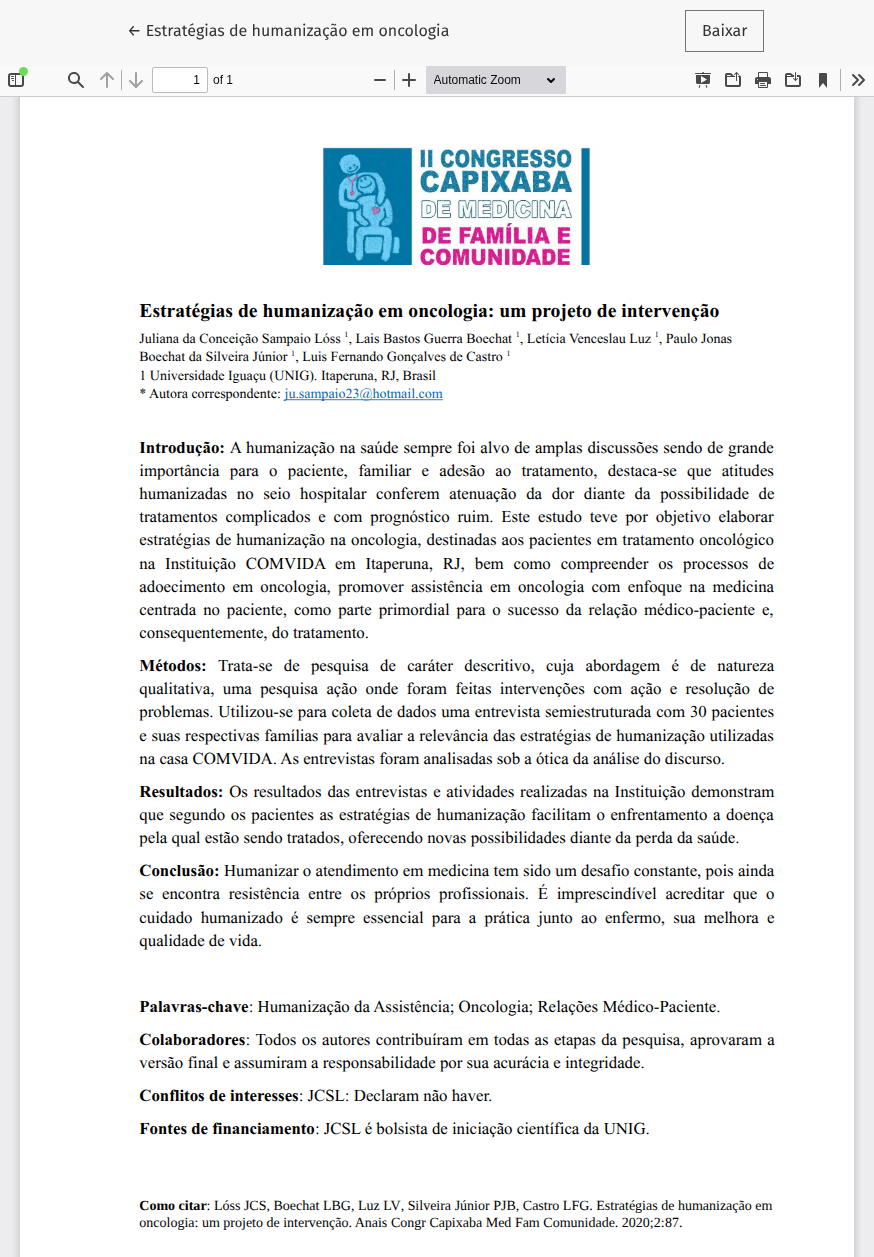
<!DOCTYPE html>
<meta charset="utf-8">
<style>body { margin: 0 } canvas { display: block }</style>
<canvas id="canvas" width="874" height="1257"></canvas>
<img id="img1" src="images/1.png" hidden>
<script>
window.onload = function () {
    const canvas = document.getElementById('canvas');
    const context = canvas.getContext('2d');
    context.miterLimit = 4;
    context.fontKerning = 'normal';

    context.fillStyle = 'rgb(247, 247, 247)';
    context.fillRect(0, 0, 874, 1257);
    context.strokeStyle = 'rgb(117, 117, 117)';
    context.strokeRect(685.5, 10.5, 78, 41);
    context.drawImage(document.getElementById('img1'), 0, 66, 874, 1191);
    context.font = '16px Fira Sans';
    context.fillStyle = 'rgb(51, 51, 51)';
    context.fillText('← Estratégias de humanização em oncologia', 127, 36);
    context.fillText('Baixar', 702, 36);
};
</script>
